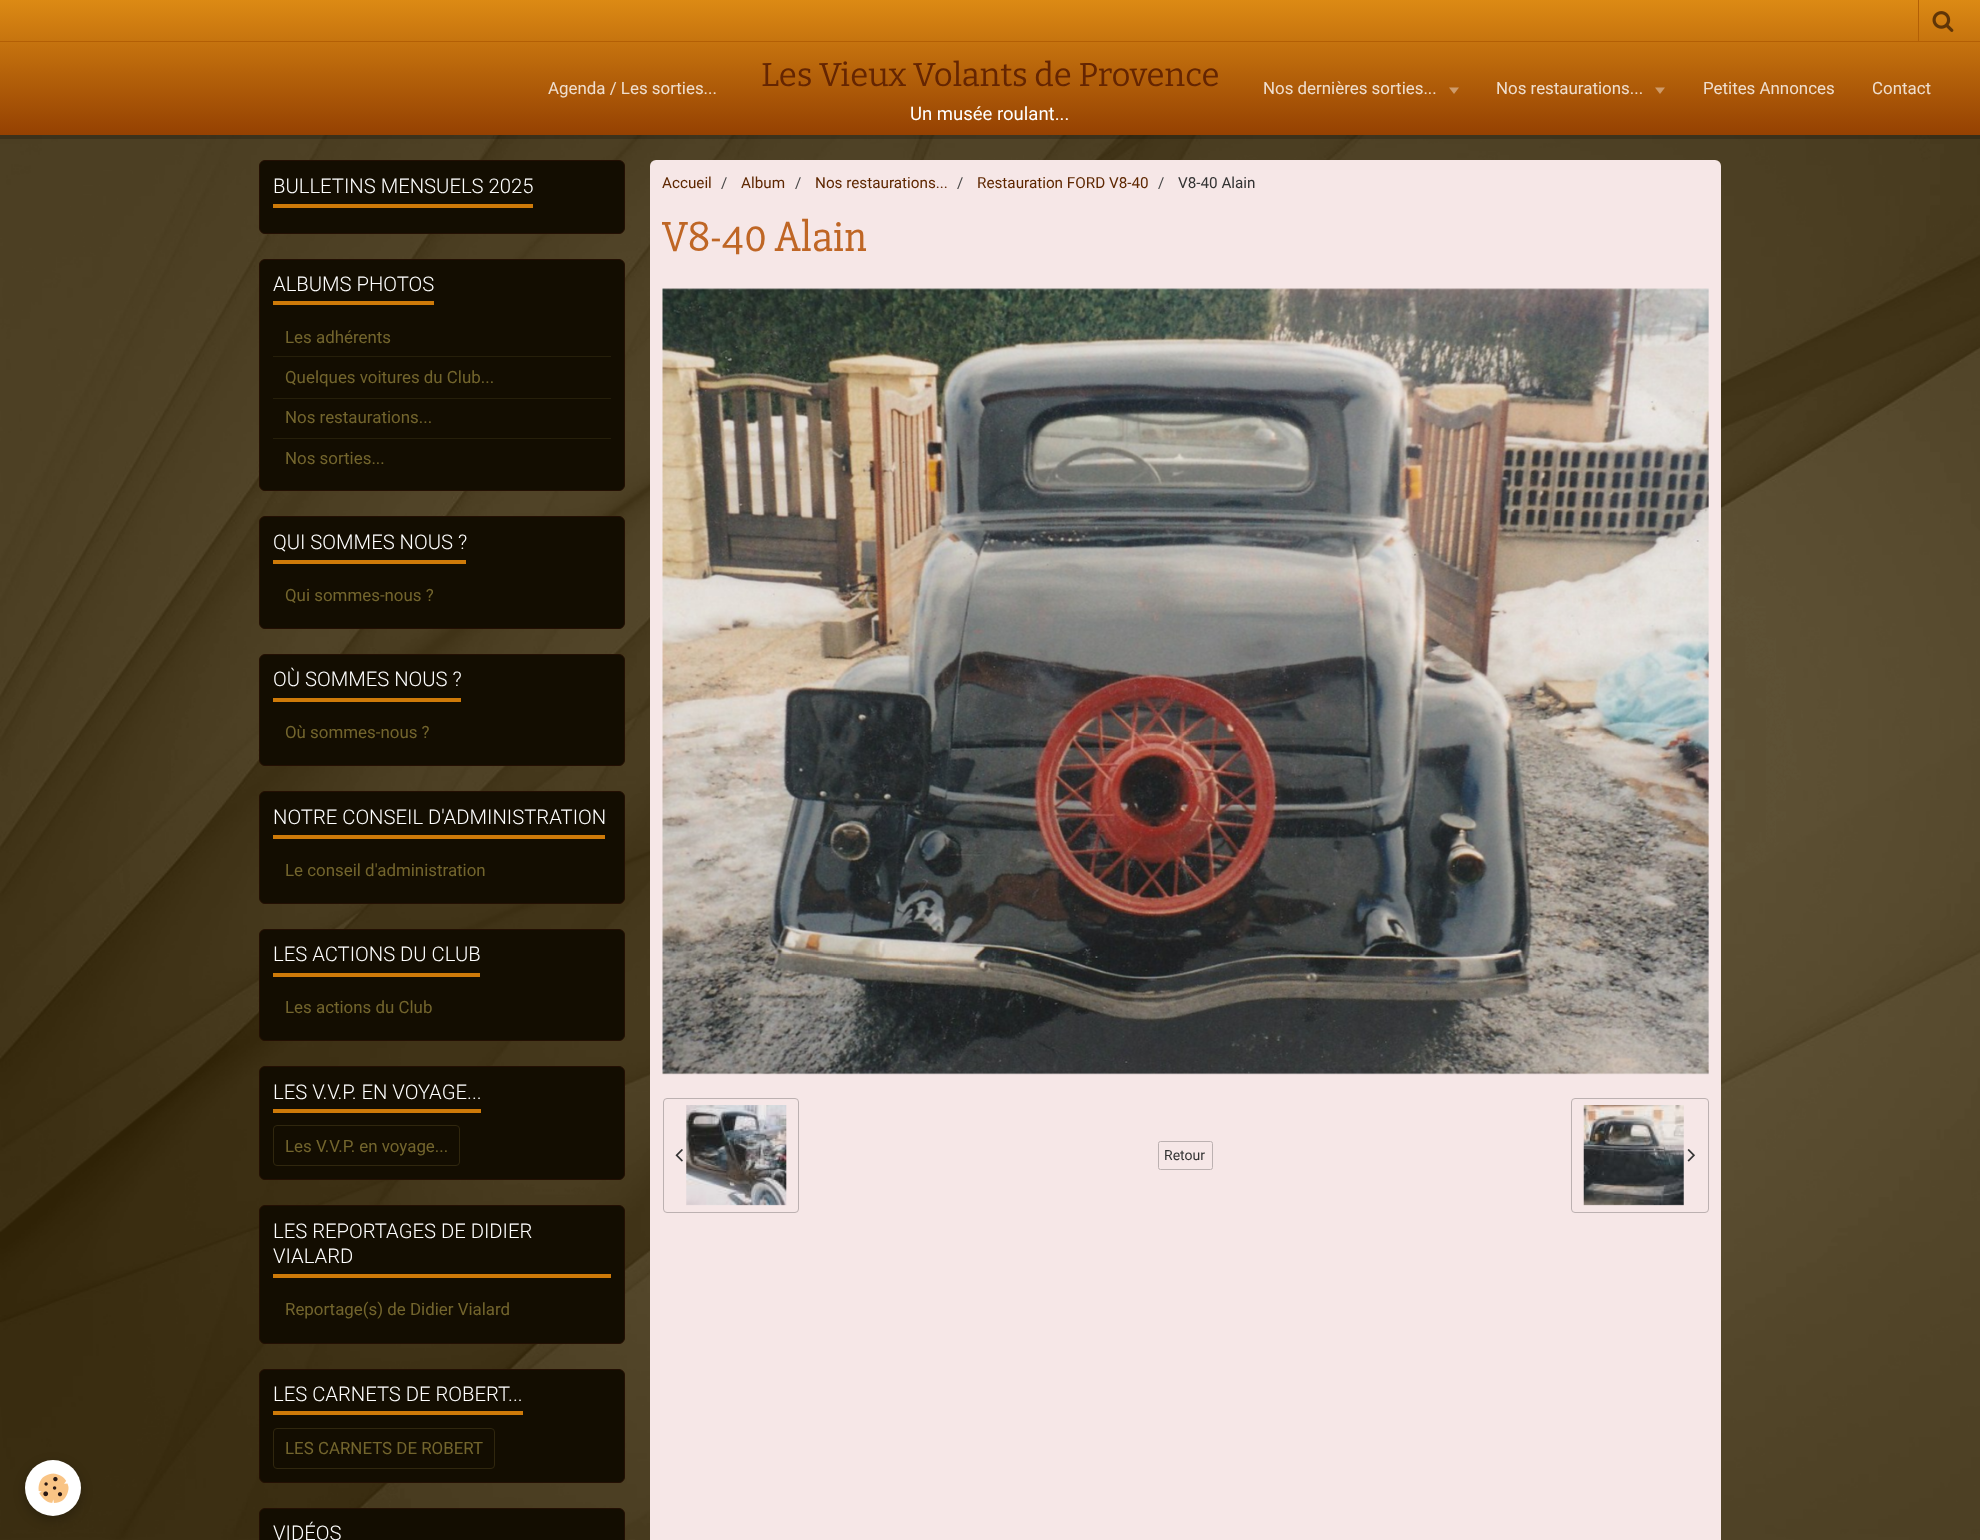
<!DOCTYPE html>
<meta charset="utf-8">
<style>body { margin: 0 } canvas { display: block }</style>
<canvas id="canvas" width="1980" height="1540"></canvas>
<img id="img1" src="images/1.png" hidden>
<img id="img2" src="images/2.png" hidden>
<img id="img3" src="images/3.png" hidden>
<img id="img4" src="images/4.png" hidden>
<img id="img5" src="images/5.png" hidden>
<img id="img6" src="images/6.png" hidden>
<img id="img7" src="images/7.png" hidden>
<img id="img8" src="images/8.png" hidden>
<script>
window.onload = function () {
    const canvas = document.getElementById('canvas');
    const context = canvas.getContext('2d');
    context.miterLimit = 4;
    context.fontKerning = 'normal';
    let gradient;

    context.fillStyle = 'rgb(56, 40, 6)';
    context.fillRect(0, 0, 1980, 1540);
    context.drawImage(document.getElementById('img1'), 0, 135, 1980, 1405);
    context.fillStyle = 'rgba(0, 0, 0, 0.2)';
    context.fillRect(0, 135, 1980, 4);
    gradient = context.createLinearGradient(990, 0, 990, 135);
    gradient.addColorStop(0, 'rgb(220, 138, 20)');
    gradient.addColorStop(1, 'rgb(149, 65, 2)');
    context.fillStyle = gradient;
    context.fillRect(0, 0, 1980, 135);
    context.fillStyle = 'rgb(179, 95, 5)';
    context.fillRect(0, 41, 1980, 1);
    context.fillRect(1918, 0, 1, 41);
    context.drawImage(document.getElementById('img2'), 1932, 11, 22, 21);
    context.fillStyle = 'rgb(206, 155, 107)';
    context.beginPath();
    context.moveTo(1449, 87.5);
    context.lineTo(1459, 87.5);
    context.lineTo(1454, 94);
    context.closePath();
    context.fill();
    context.beginPath();
    context.moveTo(1655, 87.5);
    context.lineTo(1665, 87.5);
    context.lineTo(1660, 94);
    context.closePath();
    context.fill();
    context.fillStyle = 'rgba(0, 0, 0, 0.24)';
    context.filter = 'blur(6px)';
    context.beginPath();
    context.roundRect(25, 1464, 56, 56, 28);
    context.fill();
    context.filter = 'none';
    context.fillStyle = 'rgb(255, 255, 255)';
    context.beginPath();
    context.arc(53, 1488, 28, 0, 2 * Math.PI);
    context.fill();
    context.drawImage(document.getElementById('img3'), 38, 1473, 31, 30);
    context.fillStyle = 'rgb(19, 13, 1)';
    context.beginPath();
    context.roundRect(259.5, 160.5, 365, 73, 5.5);
    context.fill();
    context.strokeStyle = 'rgb(35, 15, 3)';
    context.stroke();
    context.fillStyle = 'rgb(206, 122, 9)';
    context.fillRect(273, 204, 260, 4);
    context.fillStyle = 'rgb(19, 13, 1)';
    context.beginPath();
    context.roundRect(259.5, 259.5, 365, 231, 5.5);
    context.fill();
    context.stroke();
    context.fillStyle = 'rgb(206, 122, 9)';
    context.fillRect(273, 301, 161, 4);
    context.fillStyle = 'rgb(38, 31, 10)';
    context.fillRect(273, 356, 338, 1);
    context.fillRect(273, 398, 338, 1);
    context.fillRect(273, 438, 338, 1);
    context.fillStyle = 'rgb(19, 13, 1)';
    context.beginPath();
    context.roundRect(259.5, 516.5, 365, 112, 5.5);
    context.fill();
    context.stroke();
    context.fillStyle = 'rgb(206, 122, 9)';
    context.fillRect(273, 560, 193, 4);
    context.fillStyle = 'rgb(19, 13, 1)';
    context.beginPath();
    context.roundRect(259.5, 654.5, 365, 111, 5.5);
    context.fill();
    context.stroke();
    context.fillStyle = 'rgb(206, 122, 9)';
    context.fillRect(273, 698, 188, 4);
    context.fillStyle = 'rgb(19, 13, 1)';
    context.beginPath();
    context.roundRect(259.5, 791.5, 365, 112, 5.5);
    context.fill();
    context.stroke();
    context.fillStyle = 'rgb(206, 122, 9)';
    context.fillRect(273, 835, 332, 4);
    context.fillStyle = 'rgb(19, 13, 1)';
    context.beginPath();
    context.roundRect(259.5, 929.5, 365, 111, 5.5);
    context.fill();
    context.stroke();
    context.fillStyle = 'rgb(206, 122, 9)';
    context.fillRect(273, 973, 207, 4);
    context.fillStyle = 'rgb(19, 13, 1)';
    context.beginPath();
    context.roundRect(259.5, 1066.5, 365, 113, 5.5);
    context.fill();
    context.stroke();
    context.fillStyle = 'rgb(206, 122, 9)';
    context.fillRect(273, 1109, 208, 4);
    context.beginPath();
    context.roundRect(273.5, 1125.5, 186, 40, 3.5);
    context.strokeStyle = 'rgb(48, 39, 14)';
    context.stroke();
    context.fillStyle = 'rgb(19, 13, 1)';
    context.beginPath();
    context.roundRect(259.5, 1205.5, 365, 138, 5.5);
    context.fill();
    context.strokeStyle = 'rgb(35, 15, 3)';
    context.stroke();
    context.fillStyle = 'rgb(206, 122, 9)';
    context.fillRect(273, 1274, 338, 4);
    context.fillStyle = 'rgb(19, 13, 1)';
    context.beginPath();
    context.roundRect(259.5, 1369.5, 365, 113, 5.5);
    context.fill();
    context.stroke();
    context.fillStyle = 'rgb(206, 122, 9)';
    context.fillRect(273, 1411, 250, 4);
    context.beginPath();
    context.roundRect(273.5, 1428.5, 221, 40, 3.5);
    context.strokeStyle = 'rgb(48, 39, 14)';
    context.stroke();
    context.fillStyle = 'rgb(19, 13, 1)';
    context.beginPath();
    context.roundRect(259.5, 1508.5, 365, 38, 5.5);
    context.fill();
    context.strokeStyle = 'rgb(35, 15, 3)';
    context.stroke();
    context.fillStyle = 'rgb(246, 231, 231)';
    context.beginPath();
    context.roundRect(650, 160, 1071, 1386, 6);
    context.fill();
    context.drawImage(document.getElementById('img4'), 662, 288, 1047, 787);
    context.drawImage(document.getElementById('img5'), 675, 1149, 8, 13);
    context.drawImage(document.getElementById('img6'), 686, 1105, 101, 101);
    context.beginPath();
    context.roundRect(663.5, 1098.5, 135, 114, 3.5);
    context.strokeStyle = 'rgb(188, 177, 177)';
    context.stroke();
    context.beginPath();
    context.roundRect(1158.5, 1141.5, 54, 28, 2);
    context.stroke();
    context.drawImage(document.getElementById('img7'), 1583, 1105, 101, 101);
    context.drawImage(document.getElementById('img8'), 1687, 1149, 8, 13);
    context.beginPath();
    context.roundRect(1571.5, 1098.5, 137, 114, 3.5);
    context.stroke();
    context.font = '16.9px Roboto';
    context.fillStyle = 'rgb(239, 222, 206)';
    context.fillText('Agenda / Les sorties...', 548, 94);
    context.font = '100 32.9px Bitter';
    context.fillStyle = 'rgb(100, 37, 2)';
    context.fillText('Les Vieux Volants de Provence', 761, 86);
    context.font = '18.5px Roboto';
    context.fillStyle = 'rgb(255, 255, 255)';
    context.fillText('Un musée roulant...', 910, 120);
    context.font = '16.9px Roboto';
    context.fillStyle = 'rgb(239, 222, 206)';
    context.fillText('Nos dernières sorties...', 1263, 94);
    context.fillText('Nos restaurations...', 1496, 94);
    context.fillText('Petites Annonces', 1703, 94);
    context.fillText('Contact', 1872, 94);
    context.font = '300 20.25px Roboto';
    context.fillStyle = 'rgb(255, 255, 255)';
    context.fillText('BULLETINS MENSUELS 2025', 273, 193);
    context.fillText('ALBUMS PHOTOS', 273, 291);
    context.font = '16.9px Roboto';
    context.fillStyle = 'rgb(115, 101, 45)';
    context.fillText('Les adhérents', 285, 343);
    context.fillText('Quelques voitures du Club...', 285, 383);
    context.fillText('Nos restaurations...', 285, 423);
    context.fillText('Nos sorties...', 285, 464);
    context.font = '300 20.25px Roboto';
    context.fillStyle = 'rgb(255, 255, 255)';
    context.fillText('QUI SOMMES NOUS ?', 273, 549);
    context.font = '16.9px Roboto';
    context.fillStyle = 'rgb(115, 101, 45)';
    context.fillText('Qui sommes-nous ?', 285, 601);
    context.font = '300 20.25px Roboto';
    context.fillStyle = 'rgb(255, 255, 255)';
    context.fillText('OÙ SOMMES NOUS ?', 273, 686);
    context.font = '16.9px Roboto';
    context.fillStyle = 'rgb(115, 101, 45)';
    context.fillText('Où sommes-nous ?', 285, 738);
    context.font = '300 20.25px Roboto';
    context.fillStyle = 'rgb(255, 255, 255)';
    context.fillText('NOTRE CONSEIL D\'ADMINISTRATION', 273, 824);
    context.font = '16.9px Roboto';
    context.fillStyle = 'rgb(115, 101, 45)';
    context.fillText('Le conseil d\'administration', 285, 876);
    context.font = '300 20.25px Roboto';
    context.fillStyle = 'rgb(255, 255, 255)';
    context.fillText('LES ACTIONS DU CLUB', 273, 961);
    context.font = '16.9px Roboto';
    context.fillStyle = 'rgb(115, 101, 45)';
    context.fillText('Les actions du Club', 285, 1013);
    context.font = '300 20.25px Roboto';
    context.fillStyle = 'rgb(255, 255, 255)';
    context.fillText('LES V.V.P. EN VOYAGE...', 273, 1099);
    context.font = '16.9px Roboto';
    context.fillStyle = 'rgb(115, 101, 45)';
    context.fillText('Les V.V.P. en voyage...', 285, 1152);
    context.font = '300 20.25px Roboto';
    context.fillStyle = 'rgb(255, 255, 255)';
    context.fillText('LES REPORTAGES DE DIDIER', 273, 1238);
    context.fillText('VIALARD', 273, 1263);
    context.font = '16.9px Roboto';
    context.fillStyle = 'rgb(115, 101, 45)';
    context.fillText('Reportage(s) de Didier Vialard', 285, 1315);
    context.font = '300 20.25px Roboto';
    context.fillStyle = 'rgb(255, 255, 255)';
    context.fillText('LES CARNETS DE ROBERT...', 273, 1401);
    context.font = '16.9px Roboto';
    context.fillStyle = 'rgb(115, 101, 45)';
    context.fillText('LES CARNETS DE ROBERT', 285, 1454);
    context.font = '300 20.25px Roboto';
    context.fillStyle = 'rgb(255, 255, 255)';
    context.fillText('VIDÉOS', 273, 1540);
    context.font = '15.25px Roboto';
    context.fillStyle = 'rgb(94, 39, 1)';
    context.fillText('Accueil', 662, 188);
    context.fillStyle = 'rgb(71, 71, 71)';
    context.fillText('/', 721, 188);
    context.fillStyle = 'rgb(94, 39, 1)';
    context.fillText('Album', 741, 188);
    context.fillStyle = 'rgb(71, 71, 71)';
    context.fillText('/', 795, 188);
    context.fillStyle = 'rgb(94, 39, 1)';
    context.fillText('Nos restaurations...', 815, 188);
    context.fillStyle = 'rgb(71, 71, 71)';
    context.fillText('/', 957, 188);
    context.fillStyle = 'rgb(94, 39, 1)';
    context.fillText('Restauration FORD V8-40', 977, 188);
    context.fillStyle = 'rgb(71, 71, 71)';
    context.fillText('/', 1158, 188);
    context.fillStyle = 'rgb(51, 51, 51)';
    context.fillText('V8-40 Alain', 1178, 188);
    context.font = '43.5px "Slabo 27px"';
    context.fillStyle = 'rgb(191, 102, 37)';
    context.fillText('V8-40 Alain', 662, 251);
    context.font = '14px Roboto';
    context.fillStyle = 'rgb(51, 51, 51)';
    context.fillText('Retour', 1164, 1160);
};
</script>
